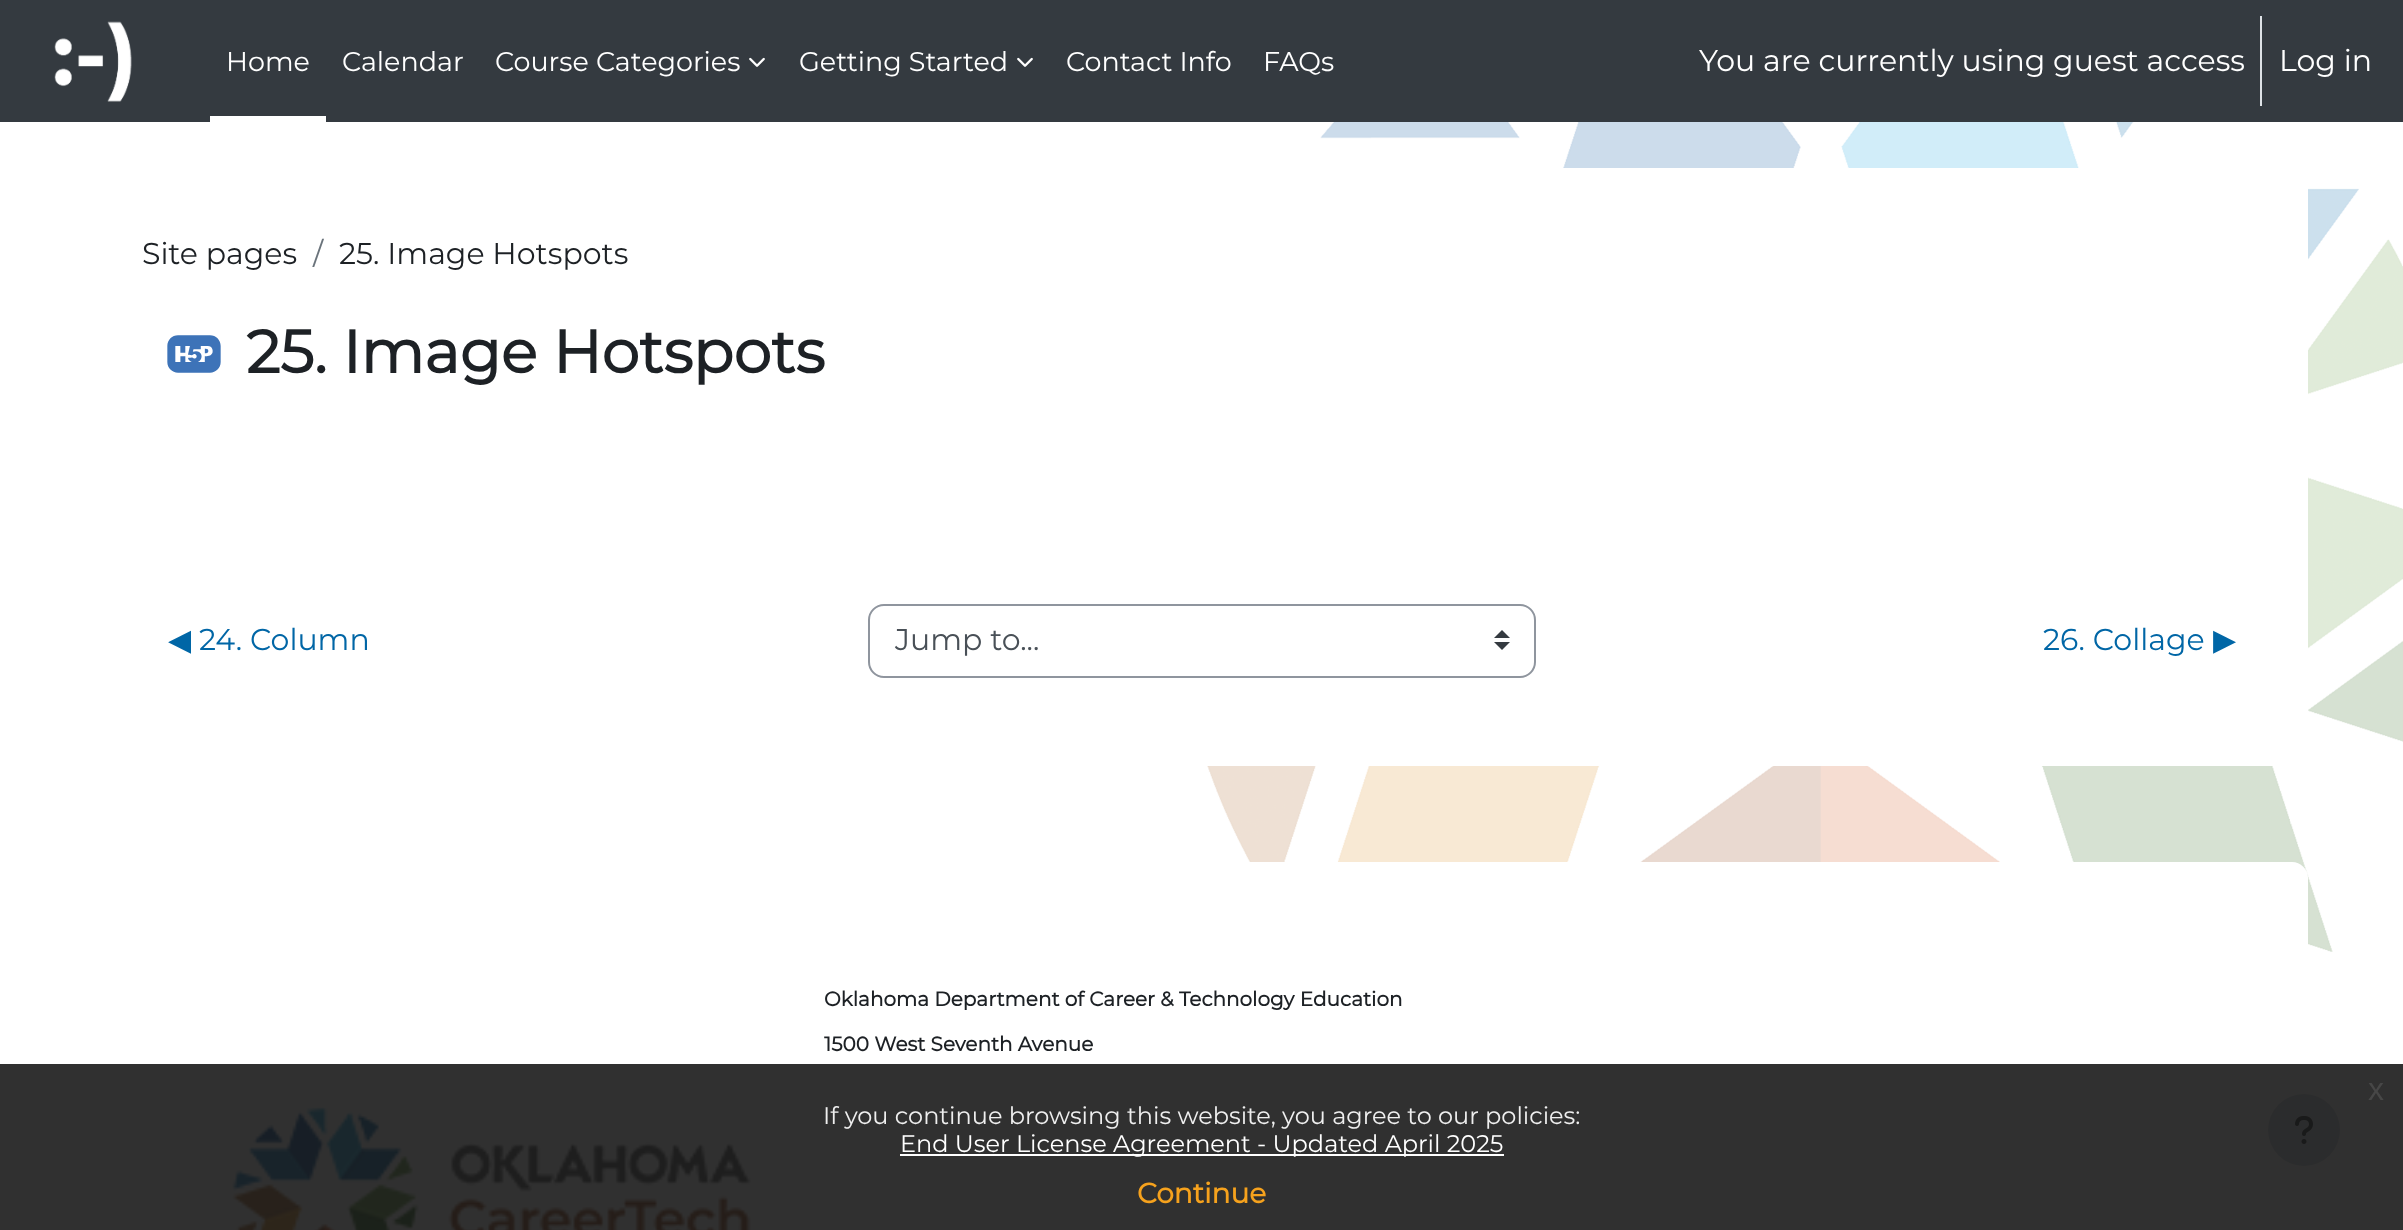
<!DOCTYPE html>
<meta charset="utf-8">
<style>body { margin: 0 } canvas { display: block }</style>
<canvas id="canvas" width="2403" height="1230"></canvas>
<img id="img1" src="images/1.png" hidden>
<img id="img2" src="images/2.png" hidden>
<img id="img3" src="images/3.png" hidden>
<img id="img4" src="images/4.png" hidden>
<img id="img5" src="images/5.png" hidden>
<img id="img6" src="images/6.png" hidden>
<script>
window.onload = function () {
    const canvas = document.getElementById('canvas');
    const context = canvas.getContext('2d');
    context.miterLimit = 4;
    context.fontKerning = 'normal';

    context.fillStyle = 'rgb(255, 255, 255)';
    context.fillRect(0, 0, 2403, 1230);
    context.drawImage(document.getElementById('img1'), 1172, 122, 1231, 1080);
    context.fillStyle = 'rgb(52, 58, 64)';
    context.fillRect(0, 0, 2403, 122);
    context.drawImage(document.getElementById('img2'), 54, 21, 78, 81);
    context.fillStyle = 'rgb(255, 255, 255)';
    context.fillRect(210, 116, 116, 6);
    context.drawImage(document.getElementById('img3'), 749, 57, 16, 10);
    context.drawImage(document.getElementById('img3'), 1017, 57, 16, 10);
    context.fillStyle = 'rgb(222, 226, 230)';
    context.fillRect(2260, 16, 2, 90);
    context.fillStyle = 'rgb(255, 255, 255)';
    context.beginPath();
    context.roundRect(96, 168, 2212, 598, 16);
    context.fill();
    context.drawImage(document.getElementById('img4'), 167, 335, 54, 38);
    context.fillStyle = 'rgb(52, 58, 64)';
    context.beginPath();
    context.moveTo(1502, 630);
    context.lineTo(1494, 638);
    context.lineTo(1510, 638);
    context.closePath();
    context.moveTo(1502, 650);
    context.lineTo(1494, 642);
    context.lineTo(1510, 642);
    context.closePath();
    context.fill();
    context.beginPath();
    context.roundRect(869, 605, 666, 72, 15);
    context.strokeStyle = 'rgb(143, 149, 158)';
    context.lineWidth = 2;
    context.stroke();
    context.fillStyle = 'rgb(255, 255, 255)';
    context.beginPath();
    context.roundRect(96, 862, 2212, 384, 16);
    context.fill();
    context.drawImage(document.getElementById('img5'), 232, 1107, 519, 123);
    context.fillStyle = 'rgb(206, 212, 218)';
    context.beginPath();
    context.arc(2304, 1130, 36, 0, 2 * Math.PI);
    context.fill();
    context.drawImage(document.getElementById('img6'), 2295, 1116, 18, 28);
    context.fillStyle = 'rgba(25, 25, 25, 0.9)';
    context.fillRect(0, 1064, 2403, 166);
    context.fillStyle = 'rgb(255, 255, 255)';
    context.fillRect(900, 1154, 604, 2);
    context.font = '100 27px Montserrat';
    context.fillText('Home', 226, 71);
    context.fillText('Calendar', 342, 71);
    context.fillText('Course Categories', 495, 71);
    context.fillText('Getting Started', 799, 71);
    context.fillText('Contact Info', 1066, 71);
    context.fillText('FAQs', 1263, 71);
    context.font = '100 30px Montserrat';
    context.fillText('You are currently using guest access', 1699, 71);
    context.fillText('Log in', 2279, 71);
    context.fillStyle = 'rgb(29, 33, 37)';
    context.fillText('Site pages', 142, 264);
    context.fillStyle = 'rgb(106, 115, 123)';
    context.fillText('/', 313, 264);
    context.fillStyle = 'rgb(29, 33, 37)';
    context.fillText('25. Image Hotspots', 339, 264);
    context.font = 'bold 60px Montserrat';
    context.fillText('25. Image Hotspots', 246, 373);
    context.font = '30px DejaVu Sans';
    context.fillStyle = 'rgb(0, 102, 166)';
    context.fillText('◀︎', 168, 650);
    context.font = '100 30px Montserrat';
    context.fillText('24. Column', 199, 650);
    context.fillStyle = 'rgb(73, 80, 87)';
    context.fillText('Jump to...', 895, 650);
    context.fillStyle = 'rgb(0, 102, 166)';
    context.fillText('26. Collage', 2043, 650);
    context.font = '30px DejaVu Sans';
    context.fillText('▶︎', 2213, 650);
    context.font = 'bold 20px Montserrat';
    context.fillStyle = 'rgb(29, 33, 37)';
    context.fillText('Oklahoma Department of Career & Technology Education', 824, 1006);
    context.fillText('1500 West Seventh Avenue', 824, 1051);
    context.font = '32px Liberation Sans';
    context.fillStyle = 'rgb(71, 71, 71)';
    context.fillText('x', 2368, 1100);
    context.font = '100 24px Montserrat';
    context.fillStyle = 'rgb(239, 239, 239)';
    context.fillText('If you continue browsing this website, you agree to our policies:', 823, 1124);
    context.fillStyle = 'rgb(255, 255, 255)';
    context.fillText('End User License Agreement - Updated April 2025', 900, 1152);
    context.font = 'bold 28px Montserrat';
    context.fillStyle = 'rgb(246, 162, 29)';
    context.fillText('Continue', 1137, 1203);
};
</script>
